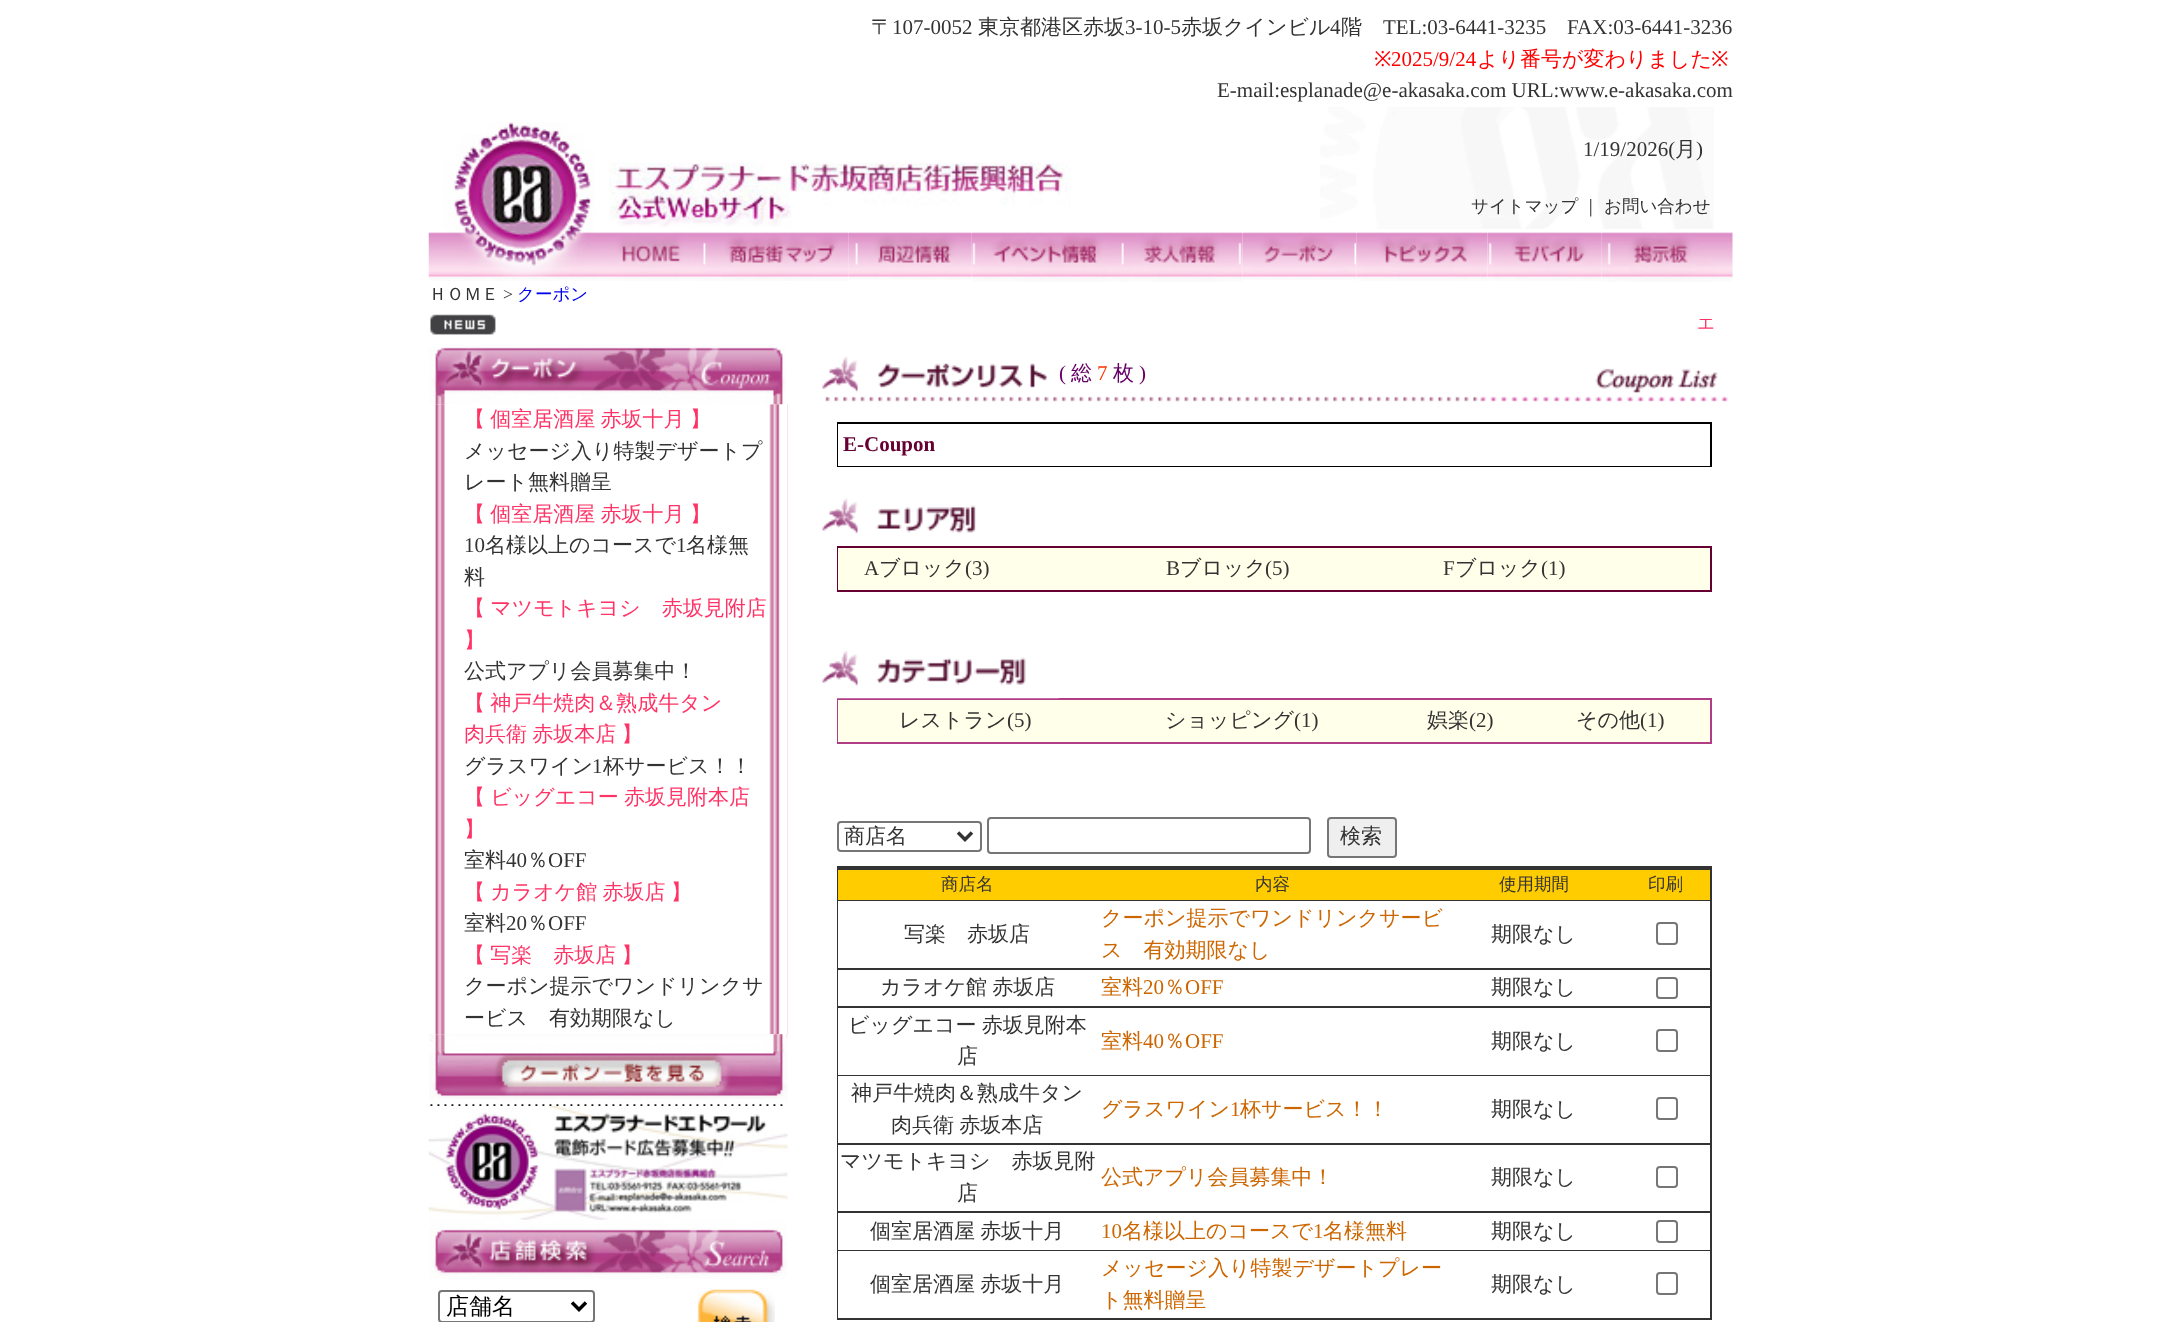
<!DOCTYPE html>
<meta charset="utf-8">
<style>body { margin: 0 } canvas { display: block }</style>
<canvas id="canvas" width="2161" height="1322"></canvas>
<img id="img1" src="images/1.png" hidden>
<img id="img2" src="images/2.png" hidden>
<img id="img3" src="images/3.png" hidden>
<img id="img4" src="images/4.png" hidden>
<img id="img5" src="images/5.png" hidden>
<img id="img6" src="images/6.png" hidden>
<img id="img7" src="images/7.png" hidden>
<img id="img8" src="images/8.png" hidden>
<img id="img9" src="images/9.png" hidden>
<img id="img10" src="images/10.png" hidden>
<img id="img11" src="images/11.png" hidden>
<img id="img12" src="images/12.png" hidden>
<img id="img13" src="images/13.png" hidden>
<img id="img14" src="images/15.png" hidden>
<img id="img15" src="images/16.png" hidden>
<img id="img16" src="images/14.png" hidden>
<img id="img17" src="images/17.png" hidden>
<img id="img18" src="images/18.png" hidden>
<img id="img19" src="images/19.png" hidden>
<img id="img20" src="images/20.png" hidden>
<img id="img21" src="images/21.png" hidden>
<img id="img22" src="images/22.png" hidden>
<img id="img23" src="images/23.png" hidden>
<img id="img24" src="images/24.png" hidden>
<img id="img25" src="images/25.png" hidden>
<img id="img26" src="images/26.png" hidden>
<script>
window.onload = function () {
    const canvas = document.getElementById('canvas');
    const context = canvas.getContext('2d');
    context.miterLimit = 4;
    context.fontKerning = 'normal';

    context.fillStyle = 'rgb(255, 255, 255)';
    context.fillRect(0, 0, 2161, 1322);
    context.drawImage(document.getElementById('img1'), 428, 122, 167, 159);
    context.drawImage(document.getElementById('img2'), 609, 162, 462, 65);
    context.drawImage(document.getElementById('img3'), 1320, 107, 394, 122);
    context.drawImage(document.getElementById('img4'), 595, 232, 105, 49);
    context.drawImage(document.getElementById('img5'), 700, 232, 149, 49);
    context.drawImage(document.getElementById('img6'), 848, 232, 124, 48);
    context.drawImage(document.getElementById('img7'), 971, 232, 149, 50);
    context.drawImage(document.getElementById('img8'), 1120, 232, 123, 50);
    context.drawImage(document.getElementById('img9'), 1242, 232, 115, 48);
    context.drawImage(document.getElementById('img10'), 1356, 232, 132, 49);
    context.drawImage(document.getElementById('img11'), 1487, 232, 115, 49);
    context.drawImage(document.getElementById('img12'), 1601, 232, 132, 50);
    context.drawImage(document.getElementById('img13'), 430, 314, 66, 21);
    context.drawImage(document.getElementById('img14'), 434, 404, 11, 631);
    context.drawImage(document.getElementById('img15'), 769, 404, 19, 631);
    context.drawImage(document.getElementById('img16'), 429, 347, 357, 58);
    context.drawImage(document.getElementById('img17'), 429, 1034, 359, 70);
    context.drawImage(document.getElementById('img18'), 430, 1104, 353, 2);
    context.drawImage(document.getElementById('img19'), 428, 1106, 360, 114);
    context.drawImage(document.getElementById('img20'), 429, 1219, 358, 60);
    context.beginPath();
    context.roundRect(439, 1291, 155, 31, 3);
    context.strokeStyle = 'rgb(118, 118, 118)';
    context.lineWidth = 2;
    context.stroke();
    context.beginPath();
    context.moveTo(572, 1302.5);
    context.lineTo(579, 1309.5);
    context.lineTo(586, 1302.5);
    context.strokeStyle = 'rgb(0, 0, 0)';
    context.lineWidth = 3.5;
    context.stroke();
    context.drawImage(document.getElementById('img21'), 697, 1289, 78, 33);
    context.drawImage(document.getElementById('img22'), 822, 356, 236, 46);
    context.drawImage(document.getElementById('img23'), 1061, 396, 294, 6);
    context.drawImage(document.getElementById('img24'), 1359, 368, 369, 34);
    context.fillStyle = 'rgb(0, 0, 0)';
    context.fillRect(837, 422, 875, 45);
    context.fillStyle = 'rgb(255, 255, 255)';
    context.fillRect(838, 424, 872, 42);
    context.drawImage(document.getElementById('img25'), 822, 498, 154, 36);
    context.fillStyle = 'rgb(102, 0, 51)';
    context.fillRect(837, 546, 875, 46);
    context.fillStyle = 'rgb(255, 255, 234)';
    context.fillRect(838, 548, 872, 42);
    context.fillStyle = 'rgb(178, 61, 135)';
    context.fillRect(837, 698, 875, 46);
    context.drawImage(document.getElementById('img26'), 822, 650, 237, 49);
    context.fillStyle = 'rgb(255, 255, 234)';
    context.fillRect(838, 700, 872, 42);
    context.beginPath();
    context.roundRect(838, 822, 143, 29, 3);
    context.strokeStyle = 'rgb(118, 118, 118)';
    context.lineWidth = 2;
    context.stroke();
    context.beginPath();
    context.moveTo(958, 832.5);
    context.lineTo(965, 839.5);
    context.lineTo(972, 832.5);
    context.strokeStyle = 'rgb(51, 51, 51)';
    context.lineWidth = 3.5;
    context.stroke();
    context.beginPath();
    context.roundRect(988, 818, 322, 35, 3);
    context.strokeStyle = 'rgb(118, 118, 118)';
    context.lineWidth = 2;
    context.stroke();
    context.fillStyle = 'rgb(239, 239, 239)';
    context.beginPath();
    context.roundRect(1328, 818, 68, 39, 3);
    context.fill();
    context.stroke();
    context.fillStyle = 'rgb(51, 51, 51)';
    context.fillRect(837, 866, 875, 454);
    context.fillStyle = 'rgb(255, 204, 0)';
    context.fillRect(838, 870, 872, 30);
    context.fillStyle = 'rgb(255, 255, 255)';
    context.fillRect(838, 901, 872, 67);
    context.beginPath();
    context.roundRect(1657, 923, 20, 21, 3);
    context.stroke();
    context.fillRect(838, 970, 872, 36);
    context.beginPath();
    context.roundRect(1657, 978, 20, 20, 3);
    context.stroke();
    context.fillRect(838, 1008, 872, 67);
    context.beginPath();
    context.roundRect(1657, 1030, 20, 21, 3);
    context.stroke();
    context.fillRect(838, 1076, 872, 67);
    context.beginPath();
    context.roundRect(1657, 1098, 20, 21, 3);
    context.stroke();
    context.fillRect(838, 1145, 872, 66);
    context.beginPath();
    context.roundRect(1657, 1167, 20, 20, 3);
    context.stroke();
    context.fillRect(838, 1213, 872, 37);
    context.beginPath();
    context.roundRect(1657, 1221, 20, 21, 3);
    context.stroke();
    context.fillRect(838, 1251, 872, 67);
    context.beginPath();
    context.roundRect(1657, 1273, 20, 21, 3);
    context.stroke();
    context.font = '500 21px WenQuanYi Zen Hei';
    context.fillStyle = 'rgb(51, 51, 51)';
    context.fillText('〒', 871, 34);
    context.font = '21px Liberation Serif';
    context.fillText('107-0052', 892, 34);
    context.font = '500 21px WenQuanYi Zen Hei';
    context.fillText('東京都港区赤坂', 978, 34);
    context.font = '21px Liberation Serif';
    context.fillText('3-10-5', 1125, 34);
    context.font = '500 21px WenQuanYi Zen Hei';
    context.fillText('赤坂クインビル', 1181, 34);
    context.font = '21px Liberation Serif';
    context.fillText('4', 1330, 34);
    context.font = '500 21px WenQuanYi Zen Hei';
    context.fillText('階', 1341, 34);
    context.font = '21px Liberation Serif';
    context.fillText('TEL:03-6441-3235', 1383, 34);
    context.fillText('FAX:03-6441-3236', 1567, 34);
    context.font = '21px Noto Sans';
    context.fillStyle = 'rgb(255, 0, 0)';
    context.fillText('※', 1374, 66);
    context.font = '21px Liberation Serif';
    context.fillText('2025/9/24', 1391, 66);
    context.font = '500 21px WenQuanYi Zen Hei';
    context.fillText('より番号が変わりました', 1477, 66);
    context.font = '21px Noto Sans';
    context.fillText('※', 1711, 66);
    context.font = '21px Liberation Serif';
    context.fillStyle = 'rgb(51, 51, 51)';
    context.fillText('E-mail:esplanade@e-akasaka.com URL:www.e-akasaka.com', 1217, 97);
    context.fillText('1/19/2026(', 1583, 156);
    context.font = '500 21px WenQuanYi Zen Hei';
    context.fillText('月', 1675, 156);
    context.font = '21px Liberation Serif';
    context.fillText(')', 1696, 156);
    context.font = '500 17.5px WenQuanYi Zen Hei';
    context.fillText('サイトマップ', 1471, 212);
    context.fillText('｜', 1582, 212);
    context.fillText('お問い合わせ', 1604, 212);
    context.fillText('ＨＯＭＥ', 429, 300);
    context.font = '17.5px Liberation Serif';
    context.fillText('>', 503, 300);
    context.font = '500 17.5px WenQuanYi Zen Hei';
    context.fillStyle = 'rgb(0, 0, 238)';
    context.fillText('クーポン', 517, 300);
    context.fillStyle = 'rgb(255, 51, 102)';
    context.fillText('エ', 1697, 329);
    context.wordSpacing = '-1px';
    context.font = '500 21px WenQuanYi Zen Hei';
    context.fillText('【 個室居酒屋 赤坂十月 】', 464, 426);
    context.wordSpacing = '0px';
    context.fillStyle = 'rgb(51, 51, 51)';
    context.fillText('メッセージ入り特製デザートプ', 464, 458);
    context.fillText('レート無料贈呈', 464, 489);
    context.wordSpacing = '-1px';
    context.fillStyle = 'rgb(255, 51, 102)';
    context.fillText('【 個室居酒屋 赤坂十月 】', 464, 521);
    context.wordSpacing = '0px';
    context.font = '21px Liberation Serif';
    context.fillStyle = 'rgb(51, 51, 51)';
    context.fillText('10', 464, 552);
    context.font = '500 21px WenQuanYi Zen Hei';
    context.fillText('名様以上のコースで', 485, 552);
    context.font = '21px Liberation Serif';
    context.fillText('1', 676, 552);
    context.font = '500 21px WenQuanYi Zen Hei';
    context.fillText('名様無', 686, 552);
    context.fillText('料', 464, 584);
    context.wordSpacing = '-1px';
    context.fillStyle = 'rgb(255, 51, 102)';
    context.fillText('【 マツモトキヨシ　赤坂見附店', 464, 615);
    context.wordSpacing = '0px';
    context.fillText('】', 464, 647);
    context.fillStyle = 'rgb(51, 51, 51)';
    context.fillText('公式アプリ会員募集中！', 464, 678);
    context.wordSpacing = '-1px';
    context.fillStyle = 'rgb(255, 51, 102)';
    context.fillText('【 神戸牛焼肉＆熟成牛タン', 464, 710);
    context.fillText('肉兵衛 赤坂本店 】', 464, 741);
    context.wordSpacing = '0px';
    context.fillStyle = 'rgb(51, 51, 51)';
    context.fillText('グラスワイン', 464, 773);
    context.font = '21px Liberation Serif';
    context.fillText('1', 592, 773);
    context.font = '500 21px WenQuanYi Zen Hei';
    context.fillText('杯サービス！！', 603, 773);
    context.wordSpacing = '-1px';
    context.fillStyle = 'rgb(255, 51, 102)';
    context.fillText('【 ビッグエコー 赤坂見附本店', 464, 804);
    context.wordSpacing = '0px';
    context.fillText('】', 464, 836);
    context.fillStyle = 'rgb(51, 51, 51)';
    context.fillText('室料', 464, 867);
    context.font = '21px Liberation Serif';
    context.fillText('40', 506, 867);
    context.font = '500 21px WenQuanYi Zen Hei';
    context.fillText('％', 527, 867);
    context.font = '21px Liberation Serif';
    context.fillText('OFF', 548, 867);
    context.wordSpacing = '-1px';
    context.font = '500 21px WenQuanYi Zen Hei';
    context.fillStyle = 'rgb(255, 51, 102)';
    context.fillText('【 カラオケ館 赤坂店 】', 464, 899);
    context.wordSpacing = '0px';
    context.fillStyle = 'rgb(51, 51, 51)';
    context.fillText('室料', 464, 930);
    context.font = '21px Liberation Serif';
    context.fillText('20', 506, 930);
    context.font = '500 21px WenQuanYi Zen Hei';
    context.fillText('％', 527, 930);
    context.font = '21px Liberation Serif';
    context.fillText('OFF', 548, 930);
    context.wordSpacing = '-1px';
    context.font = '500 21px WenQuanYi Zen Hei';
    context.fillStyle = 'rgb(255, 51, 102)';
    context.fillText('【 写楽　赤坂店 】', 464, 962);
    context.wordSpacing = '0px';
    context.fillStyle = 'rgb(51, 51, 51)';
    context.fillText('クーポン提示でワンドリンクサ', 464, 993);
    context.fillText('ービス　有効期限なし', 464, 1025);
    context.font = '500 23px WenQuanYi Zen Hei';
    context.fillStyle = 'rgb(0, 0, 0)';
    context.fillText('店舗名', 446, 1314);
    context.font = '21px Liberation Serif';
    context.fillStyle = 'rgb(102, 0, 102)';
    context.fillText('(', 1059, 380);
    context.font = '500 21px WenQuanYi Zen Hei';
    context.fillText('総', 1071, 380);
    context.font = '21px Liberation Serif';
    context.fillStyle = 'rgb(255, 51, 0)';
    context.fillText('7', 1097, 380);
    context.font = '500 21px WenQuanYi Zen Hei';
    context.fillStyle = 'rgb(102, 0, 102)';
    context.fillText('枚', 1113, 380);
    context.font = '21px Liberation Serif';
    context.fillText(')', 1139, 380);
    context.font = 'bold 21px Liberation Serif';
    context.fillStyle = 'rgb(102, 0, 51)';
    context.fillText('E-Coupon', 843, 451);
    context.font = '21px Liberation Serif';
    context.fillStyle = 'rgb(51, 51, 51)';
    context.fillText('A', 864, 575);
    context.font = '500 21px WenQuanYi Zen Hei';
    context.fillText('ブロック', 879, 575);
    context.font = '21px Liberation Serif';
    context.fillText('(3)', 965, 575);
    context.fillText('B', 1166, 575);
    context.font = '500 21px WenQuanYi Zen Hei';
    context.fillText('ブロック', 1180, 575);
    context.font = '21px Liberation Serif';
    context.fillText('(5)', 1265, 575);
    context.fillText('F', 1443, 575);
    context.font = '500 21px WenQuanYi Zen Hei';
    context.fillText('ブロック', 1455, 575);
    context.font = '21px Liberation Serif';
    context.fillText('(1)', 1541, 575);
    context.font = '500 21px WenQuanYi Zen Hei';
    context.fillText('レストラン', 899, 727);
    context.font = '21px Liberation Serif';
    context.fillText('(5)', 1007, 727);
    context.font = '500 21px WenQuanYi Zen Hei';
    context.fillText('ショッピング', 1165, 727);
    context.font = '21px Liberation Serif';
    context.fillText('(1)', 1294, 727);
    context.font = '500 21px WenQuanYi Zen Hei';
    context.fillText('娯楽', 1427, 727);
    context.font = '21px Liberation Serif';
    context.fillText('(2)', 1469, 727);
    context.font = '500 21px WenQuanYi Zen Hei';
    context.fillText('その他', 1576, 727);
    context.font = '21px Liberation Serif';
    context.fillText('(1)', 1640, 727);
    context.font = '500 21px WenQuanYi Zen Hei';
    context.fillText('商店名', 844, 843);
    context.fillText('検索', 1340, 843);
    context.font = '500 17.5px WenQuanYi Zen Hei';
    context.fillText('商店名', 941, 890);
    context.fillText('内容', 1255, 890);
    context.fillText('使用期間', 1499, 890);
    context.fillText('印刷', 1648, 890);
    context.font = '500 21px WenQuanYi Zen Hei';
    context.fillText('写楽　赤坂店', 904, 941);
    context.fillStyle = 'rgb(204, 102, 0)';
    context.fillText('クーポン提示でワンドリンクサービ', 1101, 925);
    context.fillText('ス　有効期限なし', 1101, 957);
    context.fillStyle = 'rgb(51, 51, 51)';
    context.fillText('期限なし', 1491, 941);
    context.wordSpacing = '-1px';
    context.fillText('カラオケ館 赤坂店', 880, 994);
    context.wordSpacing = '0px';
    context.fillStyle = 'rgb(204, 102, 0)';
    context.fillText('室料', 1101, 994);
    context.font = '21px Liberation Serif';
    context.fillText('20', 1143, 994);
    context.font = '500 21px WenQuanYi Zen Hei';
    context.fillText('％', 1164, 994);
    context.font = '21px Liberation Serif';
    context.fillText('OFF', 1185, 994);
    context.font = '500 21px WenQuanYi Zen Hei';
    context.fillStyle = 'rgb(51, 51, 51)';
    context.fillText('期限なし', 1491, 994);
    context.wordSpacing = '-1px';
    context.fillText('ビッグエコー 赤坂見附本', 848, 1032);
    context.wordSpacing = '0px';
    context.fillText('店', 957, 1063);
    context.fillStyle = 'rgb(204, 102, 0)';
    context.fillText('室料', 1101, 1048);
    context.font = '21px Liberation Serif';
    context.fillText('40', 1143, 1048);
    context.font = '500 21px WenQuanYi Zen Hei';
    context.fillText('％', 1164, 1048);
    context.font = '21px Liberation Serif';
    context.fillText('OFF', 1185, 1048);
    context.font = '500 21px WenQuanYi Zen Hei';
    context.fillStyle = 'rgb(51, 51, 51)';
    context.fillText('期限なし', 1491, 1048);
    context.fillText('神戸牛焼肉＆熟成牛タン', 851, 1100);
    context.wordSpacing = '-1px';
    context.fillText('肉兵衛 赤坂本店', 891, 1132);
    context.wordSpacing = '0px';
    context.fillStyle = 'rgb(204, 102, 0)';
    context.fillText('グラスワイン', 1101, 1116);
    context.font = '21px Liberation Serif';
    context.fillText('1', 1230, 1116);
    context.font = '500 21px WenQuanYi Zen Hei';
    context.fillText('杯サービス！！', 1240, 1116);
    context.fillStyle = 'rgb(51, 51, 51)';
    context.fillText('期限なし', 1491, 1116);
    context.fillText('マツモトキヨシ　赤坂見附', 840, 1168);
    context.fillText('店', 957, 1200);
    context.fillStyle = 'rgb(204, 102, 0)';
    context.fillText('公式アプリ会員募集中！', 1101, 1184);
    context.fillStyle = 'rgb(51, 51, 51)';
    context.fillText('期限なし', 1491, 1184);
    context.wordSpacing = '-1px';
    context.fillText('個室居酒屋 赤坂十月', 870, 1238);
    context.wordSpacing = '0px';
    context.font = '21px Liberation Serif';
    context.fillStyle = 'rgb(204, 102, 0)';
    context.fillText('10', 1101, 1238);
    context.font = '500 21px WenQuanYi Zen Hei';
    context.fillText('名様以上のコースで', 1122, 1238);
    context.font = '21px Liberation Serif';
    context.fillText('1', 1313, 1238);
    context.font = '500 21px WenQuanYi Zen Hei';
    context.fillText('名様無料', 1323, 1238);
    context.fillStyle = 'rgb(51, 51, 51)';
    context.fillText('期限なし', 1491, 1238);
    context.wordSpacing = '-1px';
    context.fillText('個室居酒屋 赤坂十月', 870, 1291);
    context.wordSpacing = '0px';
    context.fillStyle = 'rgb(204, 102, 0)';
    context.fillText('メッセージ入り特製デザートプレー', 1101, 1275);
    context.fillText('ト無料贈呈', 1101, 1307);
    context.fillStyle = 'rgb(51, 51, 51)';
    context.fillText('期限なし', 1491, 1291);
};
</script>
